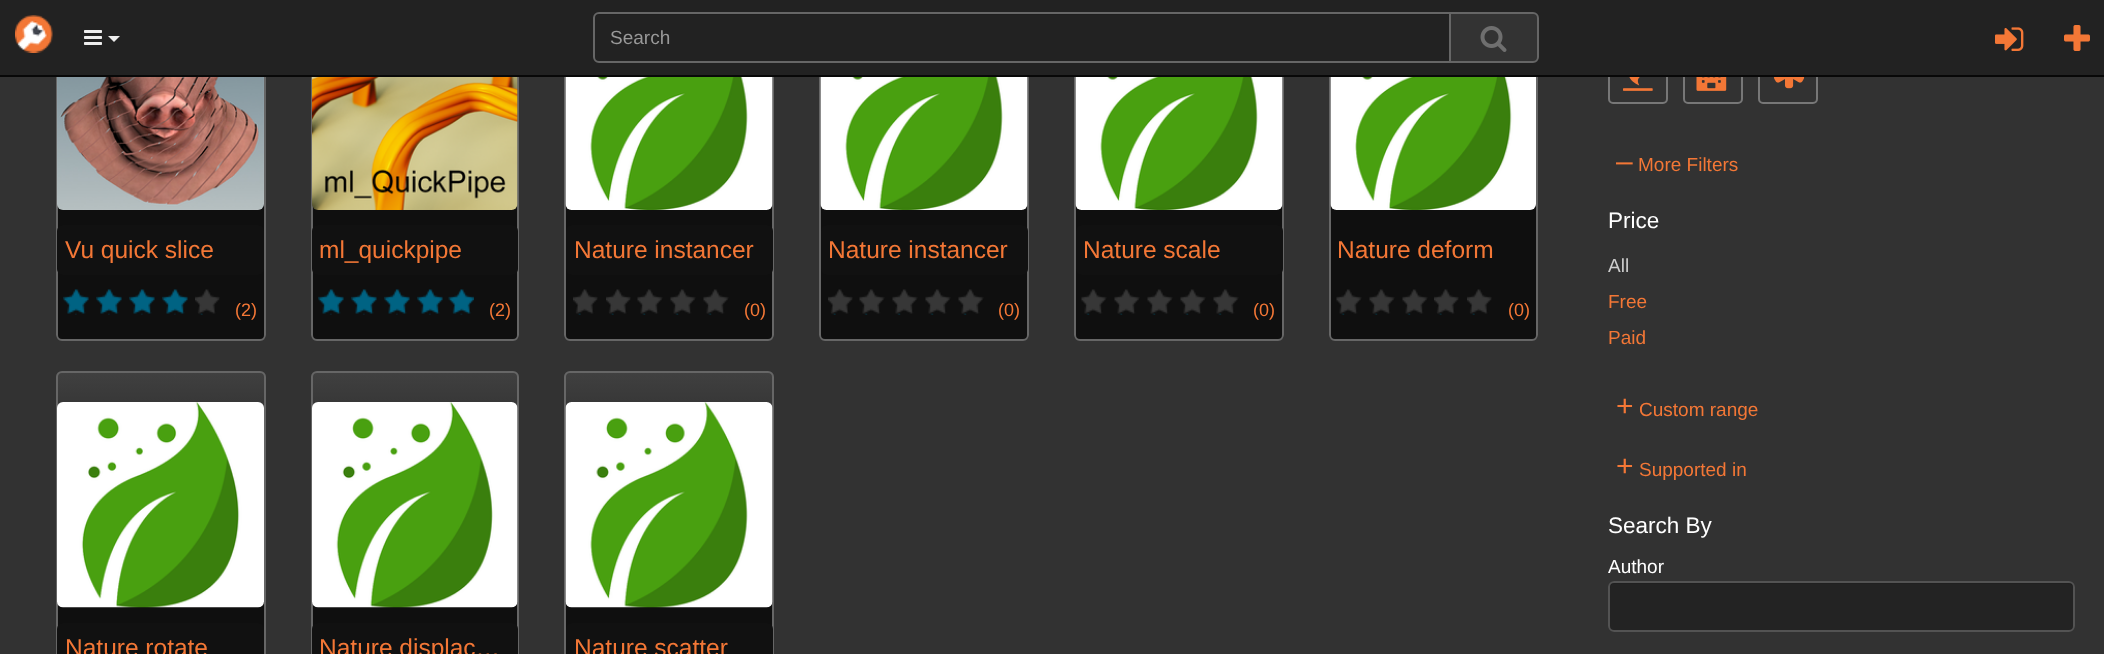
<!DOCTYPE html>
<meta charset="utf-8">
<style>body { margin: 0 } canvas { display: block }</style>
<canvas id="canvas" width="2104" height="654"></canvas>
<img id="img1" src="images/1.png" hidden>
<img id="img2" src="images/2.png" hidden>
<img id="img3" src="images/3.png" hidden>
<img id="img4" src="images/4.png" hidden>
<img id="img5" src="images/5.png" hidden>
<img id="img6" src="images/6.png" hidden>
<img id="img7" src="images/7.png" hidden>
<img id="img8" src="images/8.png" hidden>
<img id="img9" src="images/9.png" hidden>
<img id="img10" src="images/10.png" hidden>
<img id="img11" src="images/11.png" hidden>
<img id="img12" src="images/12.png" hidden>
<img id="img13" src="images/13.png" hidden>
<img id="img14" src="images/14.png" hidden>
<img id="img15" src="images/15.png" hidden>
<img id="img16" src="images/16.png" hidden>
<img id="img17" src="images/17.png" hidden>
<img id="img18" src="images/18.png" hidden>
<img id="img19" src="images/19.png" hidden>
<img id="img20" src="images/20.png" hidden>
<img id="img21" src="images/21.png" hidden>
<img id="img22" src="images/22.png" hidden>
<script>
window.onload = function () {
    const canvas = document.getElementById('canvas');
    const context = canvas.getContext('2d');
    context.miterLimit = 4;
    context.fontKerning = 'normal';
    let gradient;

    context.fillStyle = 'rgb(50, 50, 50)';
    context.fillRect(0, 0, 2104, 654);
    context.save();
    context.beginPath();
    context.roundRect(56, -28, 210, 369, 6);
    context.clip();
    gradient = context.createLinearGradient(160, -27, 161, 339);
    gradient.addColorStop(0, 'rgb(64, 64, 64)');
    gradient.addColorStop(0.5, 'rgb(15, 15, 15)');
    context.fillStyle = gradient;
    context.fillRect(56, 204, 210, 135);
    context.restore();
    context.beginPath();
    context.roundRect(57, -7, 208, 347, 5);
    context.strokeStyle = 'rgb(102, 102, 102)';
    context.lineWidth = 2;
    context.stroke();
    context.save();
    context.beginPath();
    context.roundRect(311, -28, 208, 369, 6);
    context.clip();
    gradient = context.createLinearGradient(415, -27, 415, 339);
    gradient.addColorStop(0, 'rgb(64, 64, 64)');
    gradient.addColorStop(0.5, 'rgb(15, 15, 15)');
    context.fillStyle = gradient;
    context.fillRect(311, 206, 208, 133);
    context.restore();
    context.beginPath();
    context.roundRect(312, -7, 206, 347, 5);
    context.stroke();
    context.save();
    context.beginPath();
    context.roundRect(564, -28, 210, 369, 6);
    context.clip();
    gradient = context.createLinearGradient(669, -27, 669, 339);
    gradient.addColorStop(0, 'rgb(64, 64, 64)');
    gradient.addColorStop(0.5, 'rgb(15, 15, 15)');
    context.fillStyle = gradient;
    context.fillRect(564, 206, 210, 133);
    context.restore();
    context.beginPath();
    context.roundRect(565, -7, 208, 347, 5);
    context.stroke();
    context.save();
    context.beginPath();
    context.roundRect(819, -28, 210, 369, 6);
    context.clip();
    gradient = context.createLinearGradient(924, -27, 924, 339);
    gradient.addColorStop(0, 'rgb(64, 64, 64)');
    gradient.addColorStop(0.5, 'rgb(15, 15, 15)');
    context.fillStyle = gradient;
    context.fillRect(819, 206, 210, 133);
    context.restore();
    context.beginPath();
    context.roundRect(820, -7, 208, 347, 5);
    context.stroke();
    context.save();
    context.beginPath();
    context.roundRect(1074, -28, 210, 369, 6);
    context.clip();
    gradient = context.createLinearGradient(1179, -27, 1179, 339);
    gradient.addColorStop(0, 'rgb(64, 64, 64)');
    gradient.addColorStop(0.5, 'rgb(15, 15, 15)');
    context.fillStyle = gradient;
    context.fillRect(1074, 206, 210, 133);
    context.restore();
    context.beginPath();
    context.roundRect(1075, -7, 208, 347, 5);
    context.stroke();
    context.save();
    context.beginPath();
    context.roundRect(1329, -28, 209, 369, 6);
    context.clip();
    gradient = context.createLinearGradient(1433, -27, 1433, 339);
    gradient.addColorStop(0, 'rgb(64, 64, 64)');
    gradient.addColorStop(0.5, 'rgb(15, 15, 15)');
    context.fillStyle = gradient;
    context.fillRect(1329, 204, 209, 135);
    context.restore();
    context.beginPath();
    context.roundRect(1330, -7, 207, 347, 5);
    context.stroke();
    context.beginPath();
    context.roundRect(1609, 46, 58, 57, 4);
    context.strokeStyle = 'rgb(119, 119, 119)';
    context.stroke();
    context.beginPath();
    context.roundRect(1684, 46, 58, 57, 4);
    context.stroke();
    context.beginPath();
    context.roundRect(1759, 46, 58, 57, 4);
    context.stroke();
    context.fillStyle = 'rgb(34, 34, 34)';
    context.fillRect(0, 0, 2104, 75);
    context.fillStyle = 'rgb(8, 8, 8)';
    context.fillRect(0, 75, 2104, 2);
    context.drawImage(document.getElementById('img1'), 15, 15, 38, 38);
    context.drawImage(document.getElementById('img2'), 84, 30, 18, 15);
    context.fillStyle = 'rgb(238, 238, 238)';
    context.beginPath();
    context.moveTo(108, 36);
    context.lineTo(120, 36);
    context.lineTo(114, 42);
    context.closePath();
    context.fill();
    context.fillStyle = 'rgb(31, 31, 31)';
    context.beginPath();
    context.moveTo(598, 15);
    context.lineTo(1449, 15);
    context.lineTo(1449, 14);
    context.lineTo(599, 14);
    context.bezierCurveTo(596, 14, 594, 16, 594, 19);
    context.lineTo(594, 20);
    context.bezierCurveTo(594, 17, 596, 15, 598, 15);
    context.closePath();
    context.fill();
    context.beginPath();
    context.roundRect(594, 13, 856, 49, [5, 0, 0, 5]);
    context.strokeStyle = 'rgb(102, 102, 102)';
    context.stroke();
    context.fillStyle = 'rgb(51, 51, 51)';
    context.beginPath();
    context.roundRect(1450, 13, 88, 49, [0, 5, 5, 0]);
    context.fill();
    context.stroke();
    context.drawImage(document.getElementById('img3'), 1480, 26, 27, 26);
    context.drawImage(document.getElementById('img4'), 1995, 27, 29, 24);
    context.drawImage(document.getElementById('img5'), 2064, 25, 26, 26);
    context.drawImage(document.getElementById('img6'), 57, 77, 207, 133);
    context.fillStyle = 'rgb(17, 17, 17)';
    context.beginPath();
    context.roundRect(57, 225, 207, 50, 6);
    context.fill();
    context.drawImage(document.getElementById('img7'), 63, 289, 26, 26);
    context.drawImage(document.getElementById('img7'), 96, 289, 26, 26);
    context.drawImage(document.getElementById('img7'), 129, 289, 26, 26);
    context.drawImage(document.getElementById('img7'), 162, 289, 26, 26);
    context.drawImage(document.getElementById('img8'), 195, 289, 25, 26);
    context.drawImage(document.getElementById('img9'), 312, 77, 206, 133);
    context.beginPath();
    context.roundRect(312, 225, 206, 50, 6);
    context.fill();
    context.drawImage(document.getElementById('img10'), 318, 289, 26, 26);
    context.drawImage(document.getElementById('img10'), 351, 289, 26, 26);
    context.drawImage(document.getElementById('img10'), 384, 289, 26, 26);
    context.drawImage(document.getElementById('img10'), 417, 289, 26, 26);
    context.drawImage(document.getElementById('img11'), 448, 289, 26, 26);
    context.drawImage(document.getElementById('img12'), 565, 77, 208, 133);
    context.beginPath();
    context.roundRect(566, 225, 207, 50, 6);
    context.fill();
    context.drawImage(document.getElementById('img13'), 573, 289, 25, 26);
    context.drawImage(document.getElementById('img8'), 606, 289, 25, 26);
    context.drawImage(document.getElementById('img14'), 637, 289, 26, 26);
    context.drawImage(document.getElementById('img14'), 670, 289, 26, 26);
    context.drawImage(document.getElementById('img14'), 703, 289, 26, 26);
    context.drawImage(document.getElementById('img12'), 820, 77, 208, 133);
    context.beginPath();
    context.roundRect(821, 225, 207, 50, 6);
    context.fill();
    context.drawImage(document.getElementById('img8'), 828, 289, 25, 26);
    context.drawImage(document.getElementById('img15'), 859, 289, 26, 26);
    context.drawImage(document.getElementById('img15'), 892, 289, 26, 26);
    context.drawImage(document.getElementById('img15'), 925, 289, 26, 26);
    context.drawImage(document.getElementById('img15'), 958, 289, 26, 26);
    context.drawImage(document.getElementById('img12'), 1075, 77, 208, 133);
    context.beginPath();
    context.roundRect(1076, 225, 207, 50, 6);
    context.fill();
    context.drawImage(document.getElementById('img15'), 1081, 289, 26, 26);
    context.drawImage(document.getElementById('img14'), 1114, 289, 26, 26);
    context.drawImage(document.getElementById('img14'), 1147, 289, 26, 26);
    context.drawImage(document.getElementById('img14'), 1180, 289, 26, 26);
    context.drawImage(document.getElementById('img15'), 1213, 289, 26, 26);
    context.drawImage(document.getElementById('img16'), 1330, 77, 206, 133);
    context.drawImage(document.getElementById('img14'), 1336, 289, 26, 26);
    context.drawImage(document.getElementById('img14'), 1369, 289, 26, 26);
    context.drawImage(document.getElementById('img14'), 1402, 289, 26, 26);
    context.drawImage(document.getElementById('img8'), 1434, 289, 25, 26);
    context.drawImage(document.getElementById('img13'), 1467, 289, 25, 26);
    context.save();
    context.beginPath();
    context.roundRect(56, 371, 210, 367, 6);
    context.clip();
    gradient = context.createLinearGradient(160, 372, 161, 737);
    gradient.addColorStop(0, 'rgb(64, 64, 64)');
    gradient.addColorStop(0.5, 'rgb(15, 15, 15)');
    context.fillStyle = gradient;
    context.fillRect(56, 372, 210, 257);
    context.restore();
    context.beginPath();
    context.roundRect(57, 372, 208, 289, 5);
    context.stroke();
    context.drawImage(document.getElementById('img17'), 57, 402, 207, 206);
    context.beginPath();
    context.roundRect(57, 623, 207, 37, 6);
    context.fill();
    context.save();
    context.beginPath();
    context.roundRect(311, 371, 208, 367, 6);
    context.clip();
    gradient = context.createLinearGradient(415, 372, 415, 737);
    gradient.addColorStop(0, 'rgb(64, 64, 64)');
    gradient.addColorStop(0.5, 'rgb(15, 15, 15)');
    context.fillStyle = gradient;
    context.fillRect(311, 372, 208, 254);
    context.restore();
    context.beginPath();
    context.roundRect(312, 372, 206, 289, 5);
    context.stroke();
    context.drawImage(document.getElementById('img18'), 312, 402, 206, 206);
    context.beginPath();
    context.roundRect(312, 623, 206, 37, 6);
    context.fill();
    context.save();
    context.beginPath();
    context.roundRect(564, 371, 210, 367, 6);
    context.clip();
    gradient = context.createLinearGradient(669, 372, 669, 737);
    gradient.addColorStop(0, 'rgb(64, 64, 64)');
    gradient.addColorStop(0.5, 'rgb(15, 15, 15)');
    context.fillStyle = gradient;
    context.fillRect(564, 372, 210, 257);
    context.restore();
    context.beginPath();
    context.roundRect(565, 372, 208, 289, 5);
    context.stroke();
    context.drawImage(document.getElementById('img19'), 565, 402, 208, 206);
    context.beginPath();
    context.roundRect(566, 623, 207, 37, 6);
    context.fill();
    context.drawImage(document.getElementById('img20'), 1623, 77, 30, 14);
    context.drawImage(document.getElementById('img21'), 1696, 77, 31, 14);
    context.drawImage(document.getElementById('img22'), 1774, 77, 31, 12);
    context.fillStyle = 'rgb(35, 35, 35)';
    context.beginPath();
    context.roundRect(1608, 581, 467, 51, 6);
    context.fill();
    context.fillStyle = 'rgb(32, 32, 32)';
    context.beginPath();
    context.moveTo(1614, 584);
    context.lineTo(2068, 584);
    context.bezierCurveTo(2071, 584, 2073, 586, 2073, 588);
    context.bezierCurveTo(2073, 585, 2071, 582, 2068, 582);
    context.lineTo(1615, 582);
    context.bezierCurveTo(1612, 582, 1610, 585, 1610, 588);
    context.bezierCurveTo(1610, 586, 1612, 584, 1614, 584);
    context.closePath();
    context.fill();
    context.beginPath();
    context.roundRect(1609, 582, 465, 49, 5);
    context.strokeStyle = 'rgb(83, 83, 83)';
    context.stroke();
    context.font = '19px Liberation Sans';
    context.fillStyle = 'rgb(153, 153, 153)';
    context.fillText('Search', 610, 44);
    context.font = '24.5px Liberation Sans';
    context.fillStyle = 'rgb(243, 119, 54)';
    context.fillText('Vu quick slice', 65, 258);
    context.font = '18px Liberation Sans';
    context.fillText('(2)', 235, 316);
    context.font = '24.5px Liberation Sans';
    context.fillText('ml_quickpipe', 319, 258);
    context.font = '18px Liberation Sans';
    context.fillText('(2)', 489, 316);
    context.font = '24.5px Liberation Sans';
    context.fillText('Nature instancer', 574, 258);
    context.font = '18px Liberation Sans';
    context.fillText('(0)', 744, 316);
    context.font = '24.5px Liberation Sans';
    context.fillText('Nature instancer', 828, 258);
    context.font = '18px Liberation Sans';
    context.fillText('(0)', 998, 316);
    context.font = '24.5px Liberation Sans';
    context.fillText('Nature scale', 1083, 258);
    context.font = '18px Liberation Sans';
    context.fillText('(0)', 1253, 316);
    context.font = '24.5px Liberation Sans';
    context.fillText('Nature deform', 1337, 258);
    context.font = '18px Liberation Sans';
    context.fillText('(0)', 1508, 316);
    context.font = '24.5px Liberation Sans';
    context.fillText('Nature rotate', 65, 656);
    context.fillText('Nature displac…', 319, 656);
    context.fillText('Nature scatter', 574, 656);
    context.font = '30px Liberation Sans';
    context.fillText('–', 1616, 171);
    context.font = '19px Liberation Sans';
    context.fillText('More Filters', 1638, 171);
    context.font = '22.5px Liberation Sans';
    context.fillStyle = 'rgb(255, 255, 255)';
    context.fillText('Price', 1608, 228);
    context.font = '19px Liberation Sans';
    context.fillStyle = 'rgb(204, 204, 204)';
    context.fillText('All', 1608, 272);
    context.fillStyle = 'rgb(243, 119, 54)';
    context.fillText('Free', 1608, 308);
    context.fillText('Paid', 1608, 344);
    context.font = '30px Liberation Sans';
    context.fillText('+', 1616, 416);
    context.font = '19px Liberation Sans';
    context.fillText('Custom range', 1639, 416);
    context.font = '30px Liberation Sans';
    context.fillText('+', 1616, 476);
    context.font = '19px Liberation Sans';
    context.fillText('Supported in', 1639, 476);
    context.font = '22.5px Liberation Sans';
    context.fillStyle = 'rgb(255, 255, 255)';
    context.fillText('Search By', 1608, 533);
    context.font = '19px Liberation Sans';
    context.fillText('Author', 1608, 573);
};
</script>
